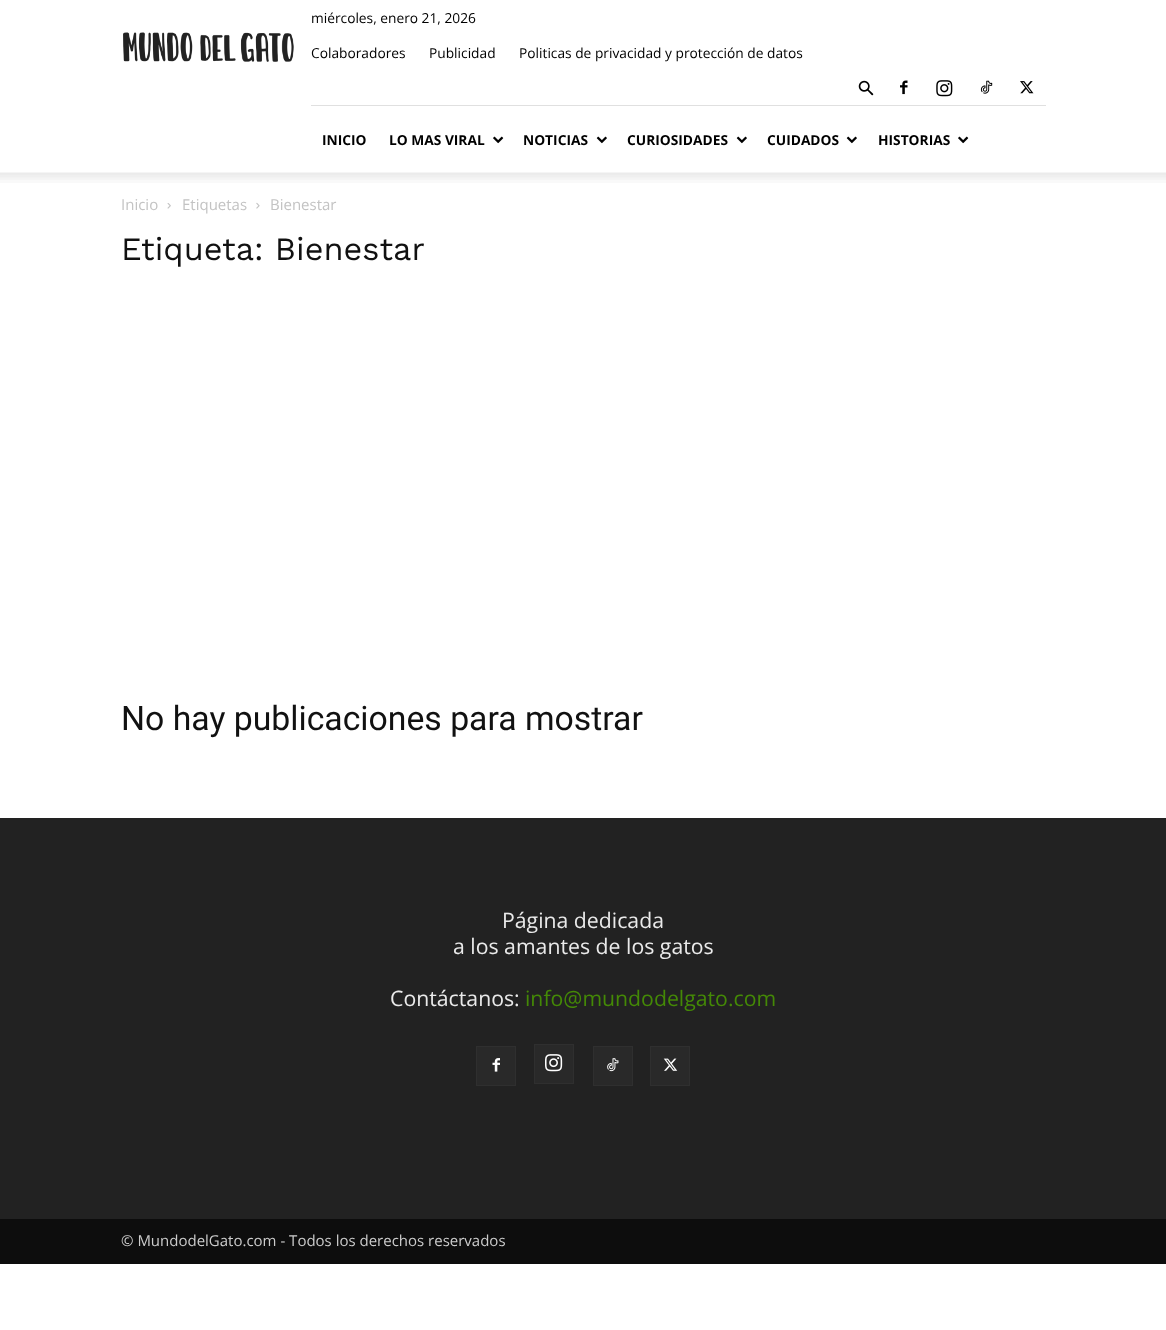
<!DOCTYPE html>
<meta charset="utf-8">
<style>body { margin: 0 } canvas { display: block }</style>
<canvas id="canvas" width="1166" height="1330"></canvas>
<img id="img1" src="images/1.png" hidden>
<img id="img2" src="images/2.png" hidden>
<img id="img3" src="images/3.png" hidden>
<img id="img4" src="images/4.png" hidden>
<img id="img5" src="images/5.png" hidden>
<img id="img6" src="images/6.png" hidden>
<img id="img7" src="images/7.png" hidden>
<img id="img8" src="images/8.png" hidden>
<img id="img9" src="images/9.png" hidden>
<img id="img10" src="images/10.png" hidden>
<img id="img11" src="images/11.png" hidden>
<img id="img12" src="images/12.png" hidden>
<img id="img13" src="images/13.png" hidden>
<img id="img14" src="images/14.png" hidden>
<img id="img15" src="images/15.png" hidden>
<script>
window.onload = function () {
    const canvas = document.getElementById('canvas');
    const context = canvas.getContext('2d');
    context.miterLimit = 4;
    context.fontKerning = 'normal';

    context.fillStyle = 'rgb(255, 255, 255)';
    context.fillRect(0, 0, 1166, 1330);
    context.drawImage(document.getElementById('img1'), 123, 32, 171, 30);
    context.fillStyle = 'rgb(224, 224, 224)';
    context.fillRect(311, 105, 735, 1);
    context.drawImage(document.getElementById('img2'), 858, 80, 16, 16);
    context.drawImage(document.getElementById('img3'), 900, 80, 8, 15);
    context.drawImage(document.getElementById('img4'), 936, 80, 17, 17);
    context.drawImage(document.getElementById('img5'), 980, 80, 13, 14);
    context.drawImage(document.getElementById('img6'), 1020, 81, 14, 13);
    context.drawImage(document.getElementById('img7'), 493, 136, 11, 8);
    context.drawImage(document.getElementById('img8'), 596, 136, 11, 8);
    context.drawImage(document.getElementById('img8'), 736, 136, 11, 8);
    context.drawImage(document.getElementById('img8'), 846, 136, 11, 8);
    context.drawImage(document.getElementById('img7'), 958, 136, 11, 8);
    context.drawImage(document.getElementById('img9'), 0, 172, 1166, 11);
    context.drawImage(document.getElementById('img10'), 167, 203, 4, 6);
    context.drawImage(document.getElementById('img11'), 256, 202, 4, 7);
    context.fillStyle = 'rgb(34, 34, 34)';
    context.fillRect(0, 818, 1166, 401);
    context.fillStyle = 'rgb(41, 41, 41)';
    context.fillRect(477, 1047, 38, 38);
    context.drawImage(document.getElementById('img12'), 492, 1058, 8, 14);
    context.strokeStyle = 'rgb(47, 47, 47)';
    context.strokeRect(476.5, 1046.5, 39, 39);
    context.fillRect(535, 1045, 38, 38);
    context.drawImage(document.getElementById('img13'), 545, 1054, 18, 18);
    context.strokeRect(534.5, 1044.5, 39, 39);
    context.fillRect(594, 1047, 38, 38);
    context.drawImage(document.getElementById('img14'), 607, 1058, 12, 14);
    context.strokeRect(593.5, 1046.5, 39, 39);
    context.fillRect(651, 1047, 38, 38);
    context.drawImage(document.getElementById('img15'), 663, 1058, 15, 13);
    context.strokeRect(650.5, 1046.5, 39, 39);
    context.fillStyle = 'rgb(13, 13, 13)';
    context.fillRect(0, 1219, 1166, 45);
    context.font = '13.75px Open Sans';
    context.fillStyle = 'rgb(0, 0, 0)';
    context.fillText('miércoles, enero 21, 2026', 311, 23);
    context.fillText('Colaboradores', 311, 58);
    context.fillText('Publicidad', 429, 58);
    context.fillText('Politicas de privacidad y protección de datos', 519, 58);
    context.font = 'bold 13.75px Open Sans';
    context.fillText('INICIO', 322, 145);
    context.fillText('LO MAS VIRAL', 389, 145);
    context.fillText('NOTICIAS', 523, 145);
    context.fillText('CURIOSIDADES', 627, 145);
    context.fillText('CUIDADOS', 767, 145);
    context.fillText('HISTORIAS', 878, 145);
    context.font = '15px Open Sans';
    context.fillStyle = 'rgb(195, 195, 195)';
    context.fillText('Inicio', 121, 210);
    context.fillText('Etiquetas', 182, 210);
    context.fillText('Bienestar', 270, 210);
    context.font = '32.5px Work Sans';
    context.fillStyle = 'rgb(17, 17, 17)';
    context.fillText('Etiqueta: Bienestar', 121, 260);
    context.font = '33.75px Roboto';
    context.fillText('No hay publicaciones para mostrar', 121, 730);
    context.font = '21.25px Open Sans';
    context.fillStyle = 'rgb(234, 234, 234)';
    context.fillText('Página dedicada', 502, 928);
    context.fillText('a los amantes de los gatos', 453, 954);
    context.fillText('Contáctanos:', 390, 1006);
    context.fillStyle = 'rgb(68, 137, 6)';
    context.fillText('info@mundodelgato.com', 525, 1006);
    context.font = '15px Open Sans';
    context.fillStyle = 'rgb(204, 204, 204)';
    context.fillText('© MundodelGato.com - Todos los derechos reservados', 121, 1246);
};
</script>
